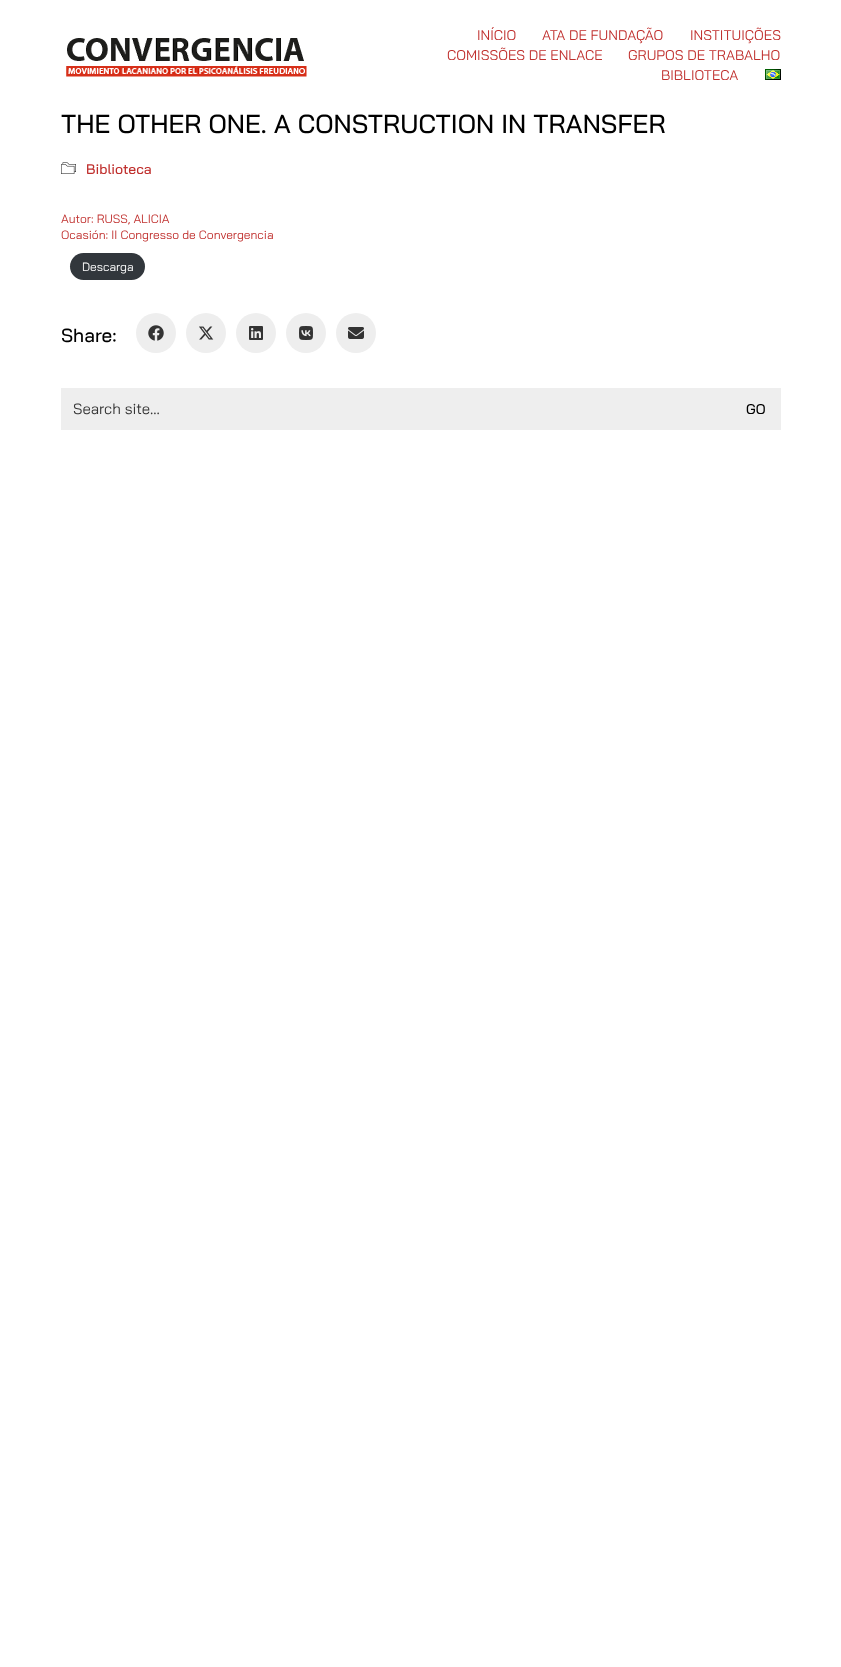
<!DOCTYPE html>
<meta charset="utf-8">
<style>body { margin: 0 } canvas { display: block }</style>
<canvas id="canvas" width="841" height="1667"></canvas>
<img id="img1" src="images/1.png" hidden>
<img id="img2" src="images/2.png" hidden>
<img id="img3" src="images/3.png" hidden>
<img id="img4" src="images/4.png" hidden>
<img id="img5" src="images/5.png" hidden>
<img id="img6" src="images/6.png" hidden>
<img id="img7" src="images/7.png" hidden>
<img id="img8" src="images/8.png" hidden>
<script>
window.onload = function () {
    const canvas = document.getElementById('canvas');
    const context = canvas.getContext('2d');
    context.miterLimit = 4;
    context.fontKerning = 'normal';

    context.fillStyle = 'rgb(255, 255, 255)';
    context.fillRect(0, 0, 841, 1667);
    context.drawImage(document.getElementById('img1'), 66, 38, 241, 39);
    context.drawImage(document.getElementById('img2'), 765, 69, 16, 11);
    context.drawImage(document.getElementById('img3'), 61, 162, 15, 12);
    context.fillStyle = 'rgb(50, 55, 60)';
    context.beginPath();
    context.roundRect(70, 253, 75, 27, 13.5);
    context.fill();
    context.fillStyle = 'rgb(238, 238, 238)';
    context.beginPath();
    context.arc(156, 333, 20, 0, 2 * Math.PI);
    context.fill();
    context.drawImage(document.getElementById('img4'), 148, 325, 16, 16);
    context.beginPath();
    context.arc(206, 333, 20, 0, 2 * Math.PI);
    context.fill();
    context.drawImage(document.getElementById('img5'), 199, 326, 15, 14);
    context.beginPath();
    context.arc(256, 333, 20, 0, 2 * Math.PI);
    context.fill();
    context.drawImage(document.getElementById('img6'), 249, 326, 14, 14);
    context.beginPath();
    context.arc(306, 333, 20, 0, 2 * Math.PI);
    context.fill();
    context.drawImage(document.getElementById('img7'), 299, 326, 14, 14);
    context.beginPath();
    context.arc(356, 333, 20, 0, 2 * Math.PI);
    context.fill();
    context.drawImage(document.getElementById('img8'), 348, 327, 16, 12);
    context.fillRect(61, 388, 720, 42);
    context.font = '14px Bai Jamjuree';
    context.fillStyle = 'rgb(192, 48, 46)';
    context.fillText('INÍCIO', 477, 40);
    context.fillText('ATA DE FUNDAÇÃO', 542, 40);
    context.fillText('INSTITUIÇÕES', 690, 40);
    context.fillText('COMISSÕES DE ENLACE', 447, 60);
    context.fillText('GRUPOS DE TRABALHO', 628, 60);
    context.fillText('BIBLIOTECA', 661, 80);
    context.font = '500 26px Bai Jamjuree';
    context.fillStyle = 'rgb(0, 0, 0)';
    context.fillText('THE OTHER ONE. A CONSTRUCTION IN TRANSFER', 61, 133);
    context.font = '500 14px Bai Jamjuree';
    context.fillStyle = 'rgb(192, 48, 46)';
    context.fillText('Biblioteca', 86, 174);
    context.font = '12px Bai Jamjuree';
    context.fillText('Autor: RUSS, ALICIA', 61, 223);
    context.fillText('Ocasión: II Congresso de Convergencia', 61, 239);
    context.fillStyle = 'rgb(255, 255, 255)';
    context.fillText('Descarga', 82, 271);
    context.font = '500 19px Bai Jamjuree';
    context.fillStyle = 'rgb(0, 0, 0)';
    context.fillText('Share:', 61, 342);
    context.font = '15px Bai Jamjuree';
    context.fillStyle = 'rgb(51, 51, 51)';
    context.fillText('Search site...', 73, 414);
    context.font = '500 14px Bai Jamjuree';
    context.fillStyle = 'rgb(0, 0, 0)';
    context.fillText('GO', 746, 414);
};
</script>
